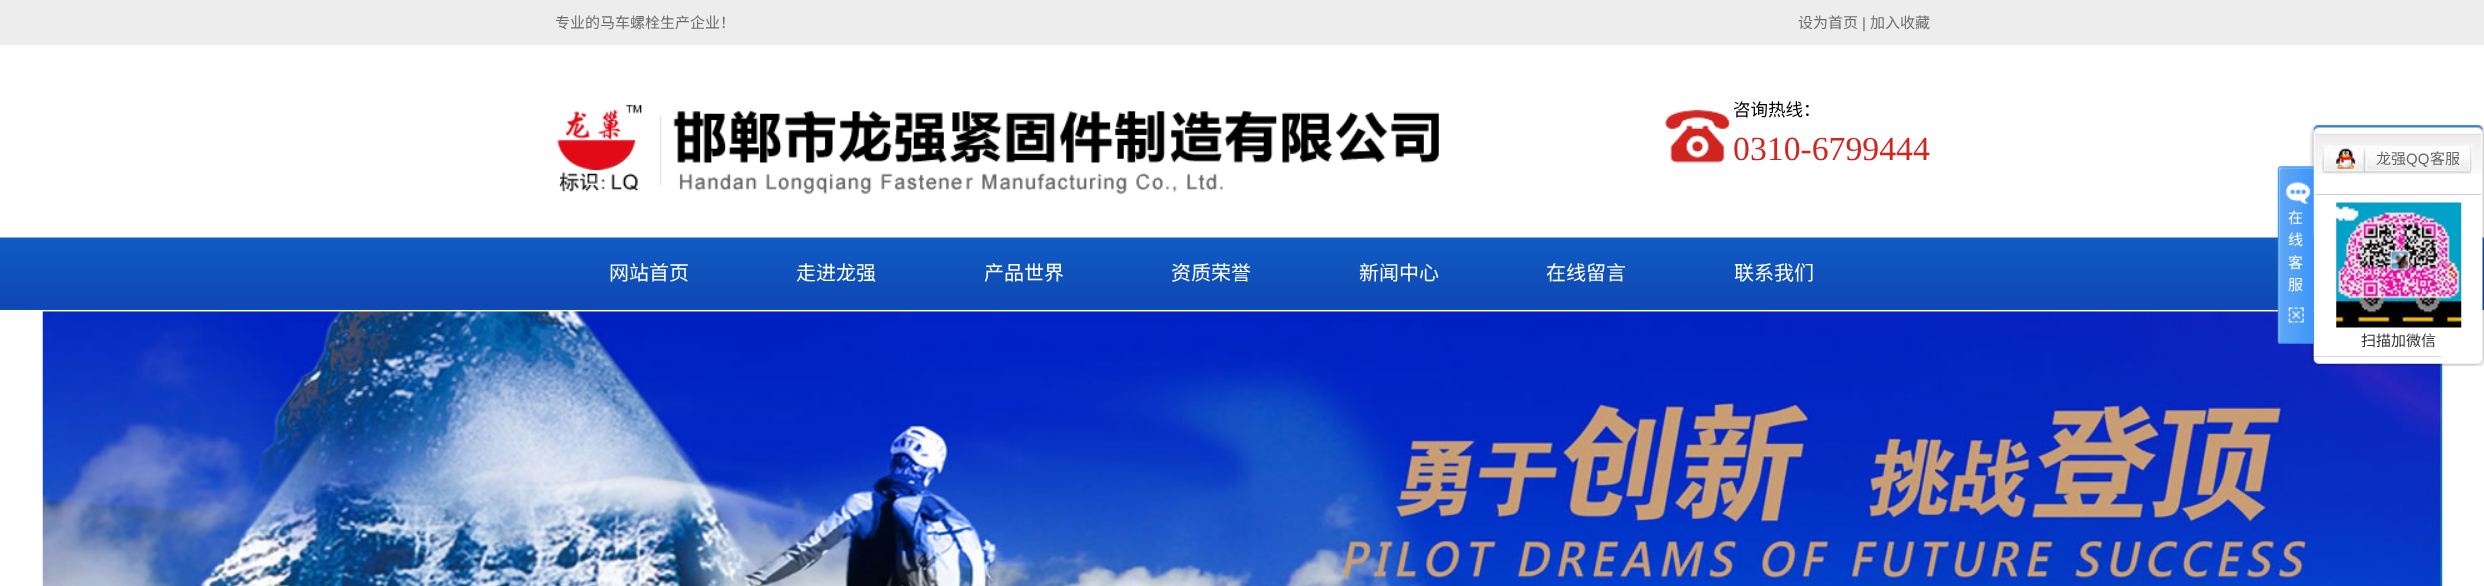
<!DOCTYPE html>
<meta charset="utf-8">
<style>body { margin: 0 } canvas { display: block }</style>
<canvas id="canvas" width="2484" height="586"></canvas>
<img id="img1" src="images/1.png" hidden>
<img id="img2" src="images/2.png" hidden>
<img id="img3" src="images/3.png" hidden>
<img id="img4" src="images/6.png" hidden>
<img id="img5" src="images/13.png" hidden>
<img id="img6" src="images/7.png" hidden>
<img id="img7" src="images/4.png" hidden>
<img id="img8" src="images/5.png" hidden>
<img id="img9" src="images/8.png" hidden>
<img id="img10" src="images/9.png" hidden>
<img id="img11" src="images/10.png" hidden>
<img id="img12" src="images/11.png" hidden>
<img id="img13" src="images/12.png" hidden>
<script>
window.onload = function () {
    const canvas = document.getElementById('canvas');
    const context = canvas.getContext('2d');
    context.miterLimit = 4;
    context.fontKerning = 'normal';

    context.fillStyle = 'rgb(255, 255, 255)';
    context.fillRect(0, 0, 2484, 586);
    context.drawImage(document.getElementById('img1'), 0, 0, 2484, 310);
    context.drawImage(document.getElementById('img2'), 557, 104, 882, 90);
    context.drawImage(document.getElementById('img3'), 1665, 110, 65, 53);
    context.drawImage(document.getElementById('img4'), 2310, 125, 174, 9);
    context.drawImage(document.getElementById('img5'), 42, 311, 2401, 275);
    context.drawImage(document.getElementById('img6'), 2309, 133, 175, 224);
    context.drawImage(document.getElementById('img7'), 2277, 166, 37, 178);
    context.drawImage(document.getElementById('img8'), 2288, 307, 16, 16);
    context.drawImage(document.getElementById('img9'), 2315, 133, 167, 41);
    context.drawImage(document.getElementById('img10'), 2322, 144, 151, 30);
    context.drawImage(document.getElementById('img11'), 2336, 148, 20, 21);
    context.fillStyle = 'rgb(204, 204, 204)';
    context.fillRect(2315, 194, 166, 1);
    context.drawImage(document.getElementById('img12'), 2336, 202, 126, 126);
    context.drawImage(document.getElementById('img13'), 2310, 356, 174, 11);
    context.font = '15px Noto Sans CJK SC';
    context.fillStyle = 'rgb(109, 109, 109)';
    context.fillText('专业的马车螺栓生产企业！', 555, 28);
    context.fillText('设为首页', 1798, 28);
    context.font = '15px Liberation Sans';
    context.fillText('|', 1862, 28);
    context.font = '15px Noto Sans CJK SC';
    context.fillText('加入收藏', 1870, 28);
    context.font = '17.5px Noto Sans CJK SC';
    context.fillStyle = 'rgb(0, 0, 0)';
    context.fillText('咨询热线：', 1733, 116);
    context.font = '33.75px Liberation Serif';
    context.fillStyle = 'rgb(207, 38, 33)';
    context.fillText('0310-6799444', 1733, 160);
    context.font = '20px Noto Sans CJK SC';
    context.fillStyle = 'rgb(255, 255, 255)';
    context.fillText('网站首页', 609, 280);
    context.fillText('走进龙强', 796, 280);
    context.fillText('产品世界', 984, 280);
    context.fillText('资质荣誉', 1171, 280);
    context.fillText('新闻中心', 1359, 280);
    context.fillText('在线留言', 1546, 280);
    context.fillText('联系我们', 1734, 280);
    context.font = '15px Noto Sans CJK SC';
    context.fillText('在', 2288, 223);
    context.fillText('线', 2288, 245);
    context.fillText('客', 2288, 268);
    context.fillText('服', 2288, 290);
    context.fillStyle = 'rgb(102, 102, 102)';
    context.fillText('龙强', 2376, 164);
    context.font = '15px Liberation Sans';
    context.fillText('QQ', 2406, 164);
    context.font = '15px Noto Sans CJK SC';
    context.fillText('客服', 2430, 164);
    context.fillStyle = 'rgb(51, 51, 51)';
    context.fillText('扫描加微信', 2361, 346);
};
</script>
